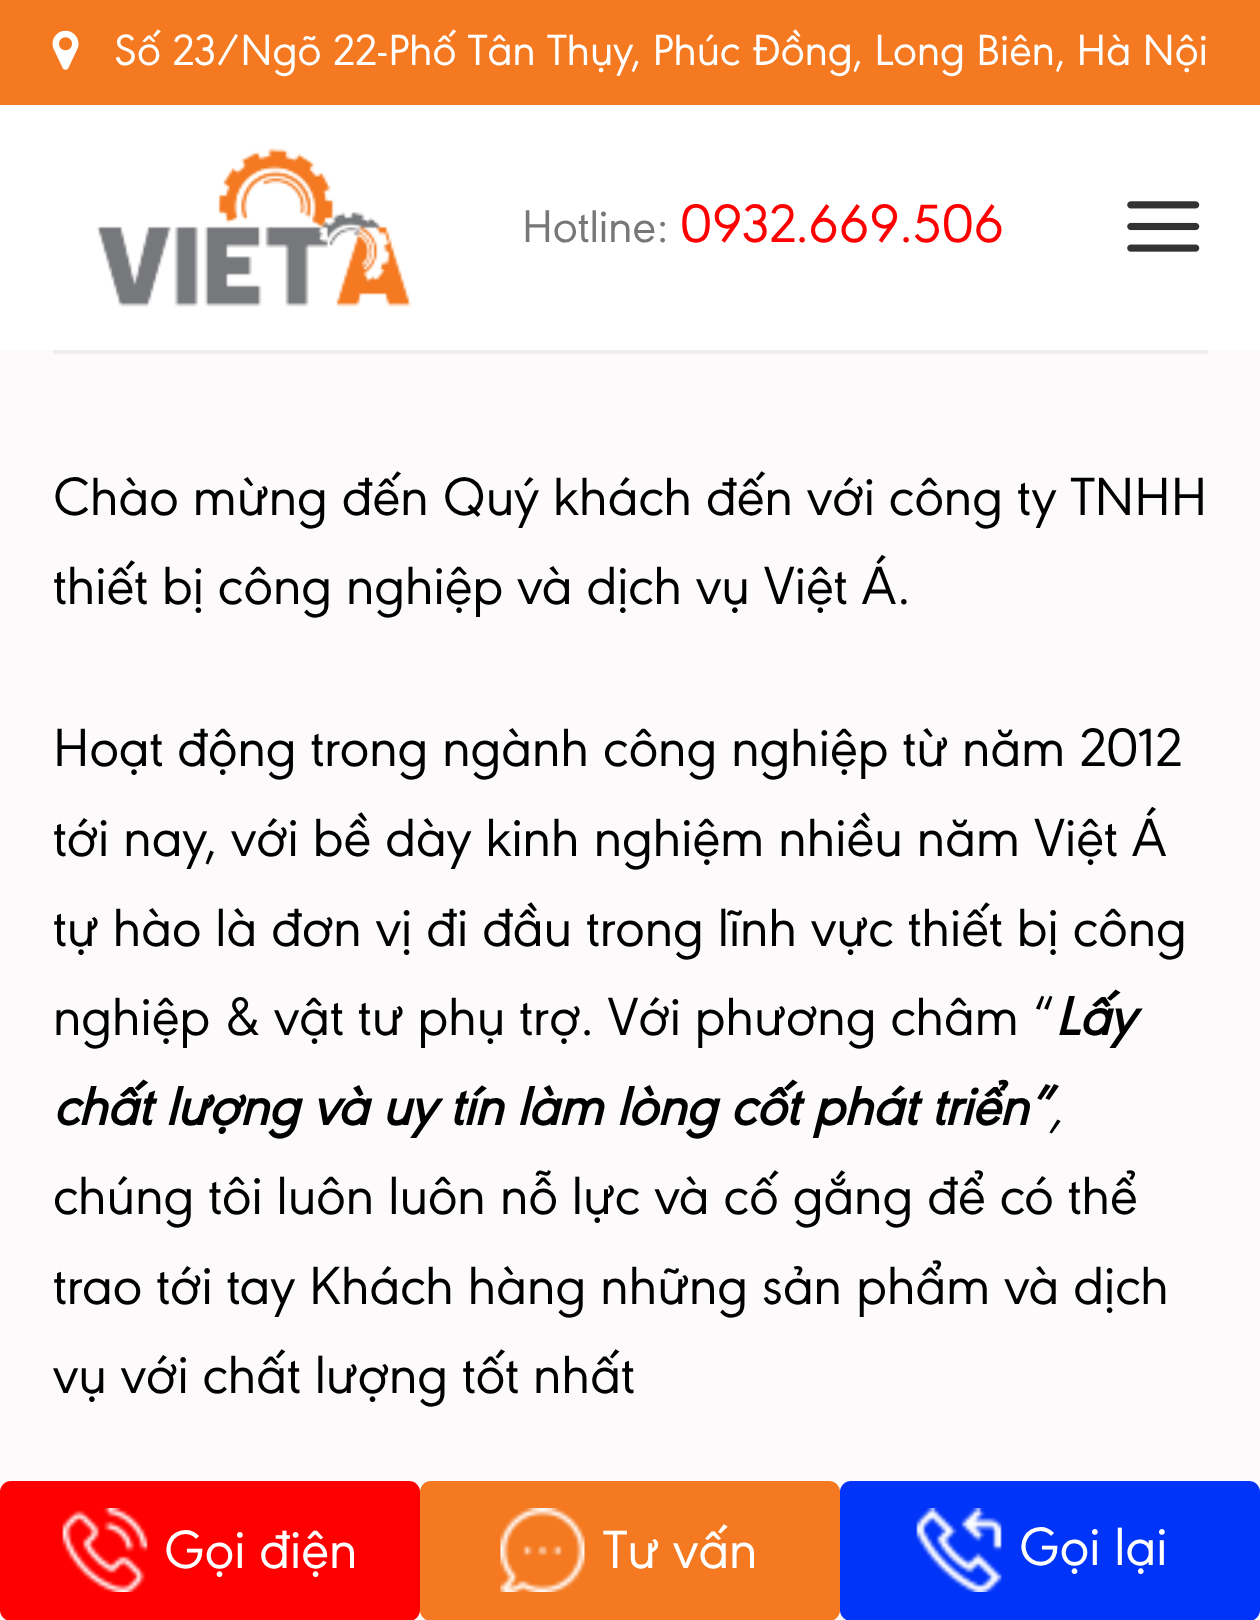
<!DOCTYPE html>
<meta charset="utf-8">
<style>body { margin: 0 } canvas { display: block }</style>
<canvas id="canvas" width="1260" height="1620"></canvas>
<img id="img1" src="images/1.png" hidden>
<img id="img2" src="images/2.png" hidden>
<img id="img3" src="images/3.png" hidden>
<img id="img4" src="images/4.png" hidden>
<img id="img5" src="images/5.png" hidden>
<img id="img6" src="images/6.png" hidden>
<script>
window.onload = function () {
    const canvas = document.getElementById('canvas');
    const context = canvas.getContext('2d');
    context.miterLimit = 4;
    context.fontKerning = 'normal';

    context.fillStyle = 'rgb(255, 255, 255)';
    context.fillRect(0, 0, 1260, 1620);
    context.fillStyle = 'rgb(244, 121, 32)';
    context.fillRect(0, 0, 1260, 105);
    context.drawImage(document.getElementById('img1'), 52, 30, 27, 40);
    context.drawImage(document.getElementById('img2'), 96, 148, 316, 159);
    context.drawImage(document.getElementById('img3'), 1127, 201, 73, 51);
    context.fillStyle = 'rgb(252, 250, 250)';
    context.fillRect(0, 350, 1260, 1270);
    context.fillStyle = 'rgb(239, 237, 237)';
    context.fillRect(53, 350, 1155, 4);
    context.fillStyle = 'rgb(255, 0, 0)';
    context.beginPath();
    context.roundRect(0, 1481, 420, 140, 11);
    context.fill();
    context.drawImage(document.getElementById('img4'), 62, 1508, 86, 84);
    context.fillStyle = 'rgb(244, 121, 32)';
    context.beginPath();
    context.roundRect(420, 1481, 420, 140, 11);
    context.fill();
    context.drawImage(document.getElementById('img5'), 500, 1508, 85, 84);
    context.fillStyle = 'rgb(0, 52, 248)';
    context.beginPath();
    context.roundRect(840, 1481, 420, 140, 11);
    context.fill();
    context.drawImage(document.getElementById('img6'), 916, 1508, 86, 84);
    context.font = '45.5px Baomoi';
    context.fillStyle = 'rgb(255, 255, 255)';
    context.fillText('Số 23/Ngõ 22-Phố Tân Thụy, Phúc Đồng, Long Biên, Hà Nội', 114, 65);
    context.font = '47.5px Baomoi';
    context.fillStyle = 'rgb(119, 119, 119)';
    context.fillText('Hotline:', 522, 242);
    context.font = '56px Baomoi';
    context.fillStyle = 'rgb(255, 0, 0)';
    context.fillText('0932.669.506', 680, 242);
    context.fillStyle = 'rgb(0, 0, 0)';
    context.fillText('Chào mừng đến Quý khách đến với công ty TNHH', 53, 515);
    context.fillText('thiết bị công nghiệp và dịch vụ Việt Á.', 53, 604);
    context.fillText('Hoạt động trong ngành công nghiệp từ năm 2012', 53, 766);
    context.fillText('tới nay, với bề dày kinh nghiệm nhiều năm Việt Á', 53, 856);
    context.fillText('tự hào là đơn vị đi đầu trong lĩnh vực thiết bị công', 53, 946);
    context.fillText('nghiệp & vật tư phụ trợ. Với phương châm “', 53, 1035);
    context.font = 'italic bold 56px Baomoi';
    context.fillText('Lấy', 1055, 1035);
    context.fillText('chất lượng và uy tín làm lòng cốt phát triển”', 53, 1125);
    context.font = 'italic 56px Baomoi';
    context.fillText(',', 1050, 1125);
    context.font = '56px Baomoi';
    context.fillText('chúng tôi luôn luôn nỗ lực và cố gắng để có thể', 53, 1214);
    context.fillText('trao tới tay Khách hàng những sản phẩm và dịch', 53, 1304);
    context.fillText('vụ với chất lượng tốt nhất', 53, 1393);
    context.fillStyle = 'rgb(255, 255, 255)';
    context.fillText('Gọi điện', 164, 1568);
    context.fillText('Tư vấn', 603, 1568);
    context.fillText('Gọi lại', 1019, 1565);
};
</script>
